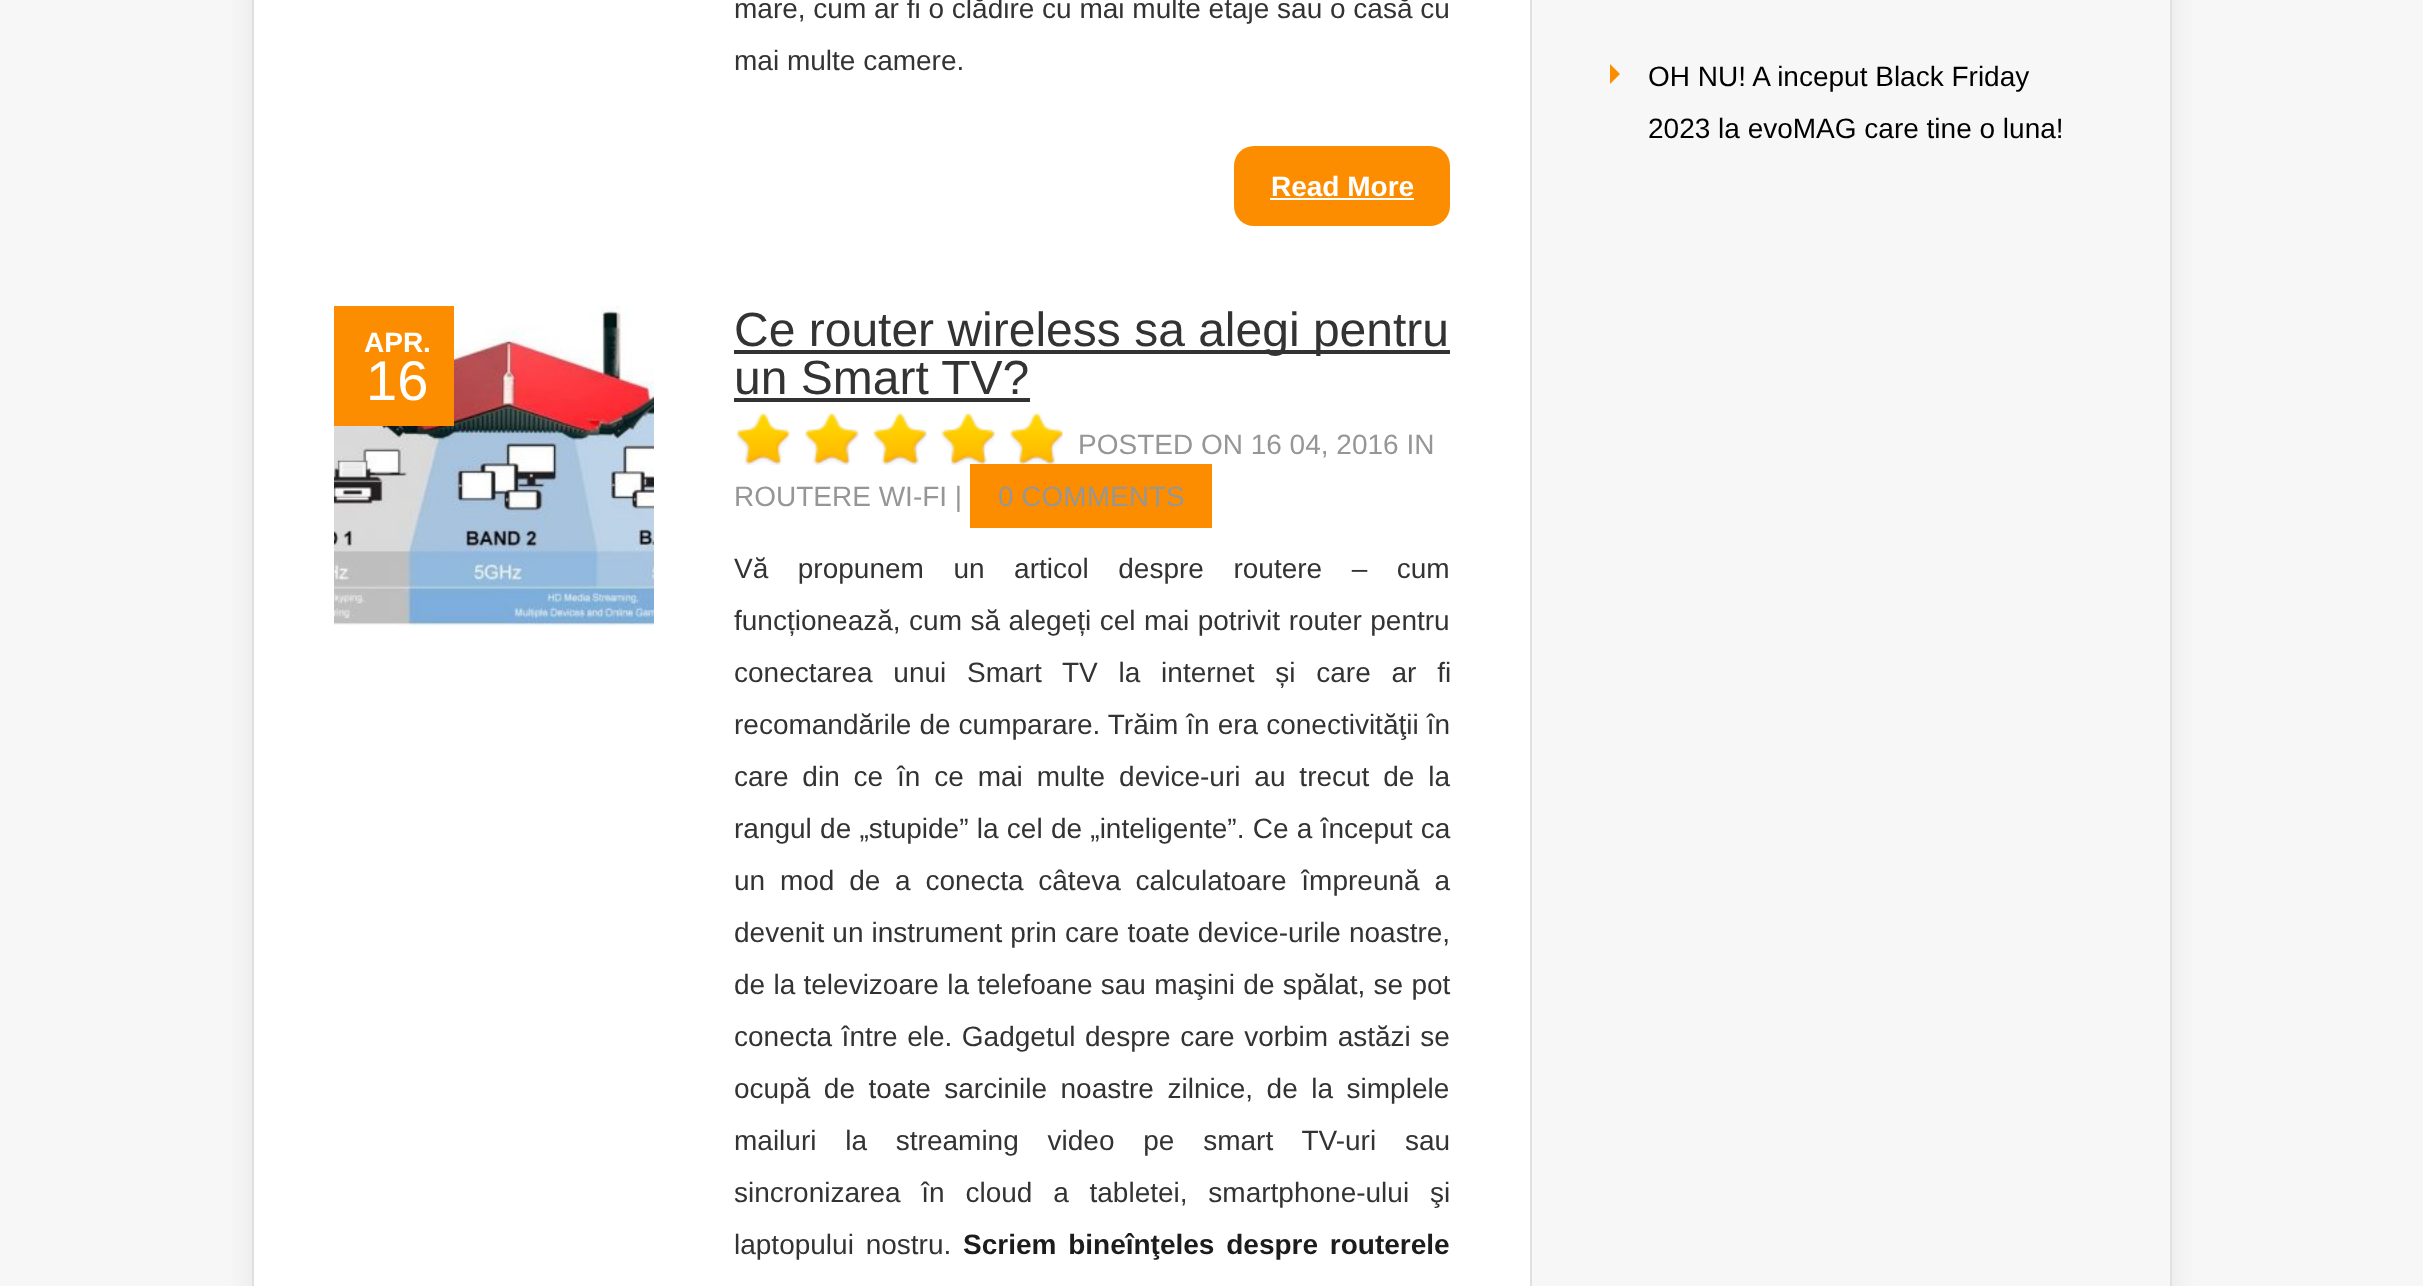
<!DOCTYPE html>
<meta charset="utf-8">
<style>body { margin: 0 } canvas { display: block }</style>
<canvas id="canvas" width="2423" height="1286"></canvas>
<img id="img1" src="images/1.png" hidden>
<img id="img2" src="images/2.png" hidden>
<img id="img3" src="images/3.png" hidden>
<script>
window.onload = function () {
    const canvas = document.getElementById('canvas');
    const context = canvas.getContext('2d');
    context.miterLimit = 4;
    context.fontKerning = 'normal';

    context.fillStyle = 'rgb(247, 247, 247)';
    context.fillRect(0, 0, 2423, 1286);
    context.fillStyle = 'rgba(0, 0, 0, 0.07)';
    context.filter = 'blur(15px)';
    context.beginPath();
    context.rect(252, -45, 1920, 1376);
    context.fill();
    context.filter = 'none';
    context.fillStyle = 'rgb(255, 255, 255)';
    context.fillRect(254, 0, 1276, 1286);
    context.fillStyle = 'rgb(224, 224, 224)';
    context.fillRect(2170, 0, 2, 1286);
    context.fillRect(252, 0, 2, 1286);
    context.fillStyle = 'rgb(252, 141, 0)';
    context.beginPath();
    context.roundRect(1234, 146, 216, 80, 20);
    context.fill();
    context.fillStyle = 'rgb(255, 255, 255)';
    context.fillRect(1270, 198, 144, 2);
    context.drawImage(document.getElementById('img1'), 334, 306, 320, 320);
    context.fillStyle = 'rgb(252, 141, 0)';
    context.fillRect(334, 306, 120, 120);
    context.fillStyle = 'rgb(51, 51, 51)';
    context.fillRect(734, 350, 716, 4);
    context.fillRect(734, 398, 296, 4);
    context.drawImage(document.getElementById('img2'), 736, 414, 327, 51);
    context.drawImage(document.getElementById('img3'), 737, 413, 326, 52);
    context.fillStyle = 'rgb(252, 141, 0)';
    context.fillRect(970, 464, 242, 64);
    context.fillStyle = 'rgb(247, 247, 247)';
    context.fillRect(1532, 0, 638, 1286);
    context.fillStyle = 'rgb(252, 141, 0)';
    context.beginPath();
    context.moveTo(1610, 84);
    context.lineTo(1610, 64);
    context.lineTo(1620, 74);
    context.closePath();
    context.fill();
    context.fillStyle = 'rgb(224, 224, 224)';
    context.fillRect(1530, 0, 2, 1286);
    context.font = '28px Liberation Sans';
    context.fillStyle = 'rgb(51, 51, 51)';
    context.fillText('mare, cum ar fi o clădire cu mai multe etaje sau o casă cu', 734, 18);
    context.fillText('mai multe camere.', 734, 70);
    context.font = 'bold 28px Liberation Sans';
    context.fillStyle = 'rgb(255, 255, 255)';
    context.fillText('Read More', 1271, 196);
    context.fillText('APR.', 364, 352);
    context.font = '56px Liberation Sans';
    context.fillText('16', 366, 400);
    context.font = '48px Liberation Sans';
    context.fillStyle = 'rgb(51, 51, 51)';
    context.fillText('Ce router wireless sa alegi pentru', 734, 346);
    context.fillText('un Smart TV?', 734, 394);
    context.font = '28px Liberation Sans';
    context.fillStyle = 'rgb(150, 150, 150)';
    context.fillText('POSTED ON 16 04, 2016 IN', 1078, 454);
    context.fillText('ROUTERE WI-FI |', 734, 506);
    context.fillText('0 COMMENTS', 998, 506);
    context.wordSpacing = '21.75px';
    context.fillStyle = 'rgb(51, 51, 51)';
    context.fillText('Vă propunem un articol despre routere – cum', 734, 578);
    context.wordSpacing = '0.75px';
    context.fillText('funcționează, cum să alegeți cel mai potrivit router pentru', 734, 630);
    context.wordSpacing = '13px';
    context.fillText('conectarea unui Smart TV la internet și care ar fi', 734, 682);
    context.wordSpacing = '0.25px';
    context.fillText('recomandările de cumparare. Trăim în era conectivităţii în', 734, 734);
    context.wordSpacing = '6.1px';
    context.fillText('care din ce în ce mai multe device-uri au trecut de la', 734, 786);
    context.wordSpacing = '0.5px';
    context.fillText('rangul de „stupide” la cel de „inteligente”. Ce a început ca', 734, 838);
    context.wordSpacing = '7px';
    context.fillText('un mod de a conecta câteva calculatoare împreună a', 734, 890);
    context.wordSpacing = '0.25px';
    context.fillText('devenit un instrument prin care toate device-urile noastre,', 734, 942);
    context.wordSpacing = '0.5px';
    context.fillText('de la televizoare la telefoane sau maşini de spălat, se pot', 734, 994);
    context.wordSpacing = '1.75px';
    context.fillText('conecta între ele. Gadgetul despre care vorbim astăzi se', 734, 1046);
    context.wordSpacing = '5.75px';
    context.fillText('ocupă de toate sarcinile noastre zilnice, de la simplele', 734, 1098);
    context.wordSpacing = '21px';
    context.fillText('mailuri la streaming video pe smart TV-uri sau', 734, 1150);
    context.wordSpacing = '13px';
    context.fillText('sincronizarea în cloud a tabletei, smartphone-ului şi', 734, 1202);
    context.wordSpacing = '4px';
    context.fillText('laptopului nostru.', 734, 1254);
    context.font = 'bold 28px Liberation Sans';
    context.fillStyle = 'rgb(28, 28, 28)';
    context.fillText('Scriem bineînţeles despre routerele', 963, 1254);
    context.wordSpacing = '0px';
    context.font = '28px Liberation Sans';
    context.fillStyle = 'rgb(0, 0, 0)';
    context.fillText('OH NU! A inceput Black Friday', 1648, 86);
    context.fillText('2023 la evoMAG care tine o luna!', 1648, 138);
};
</script>
